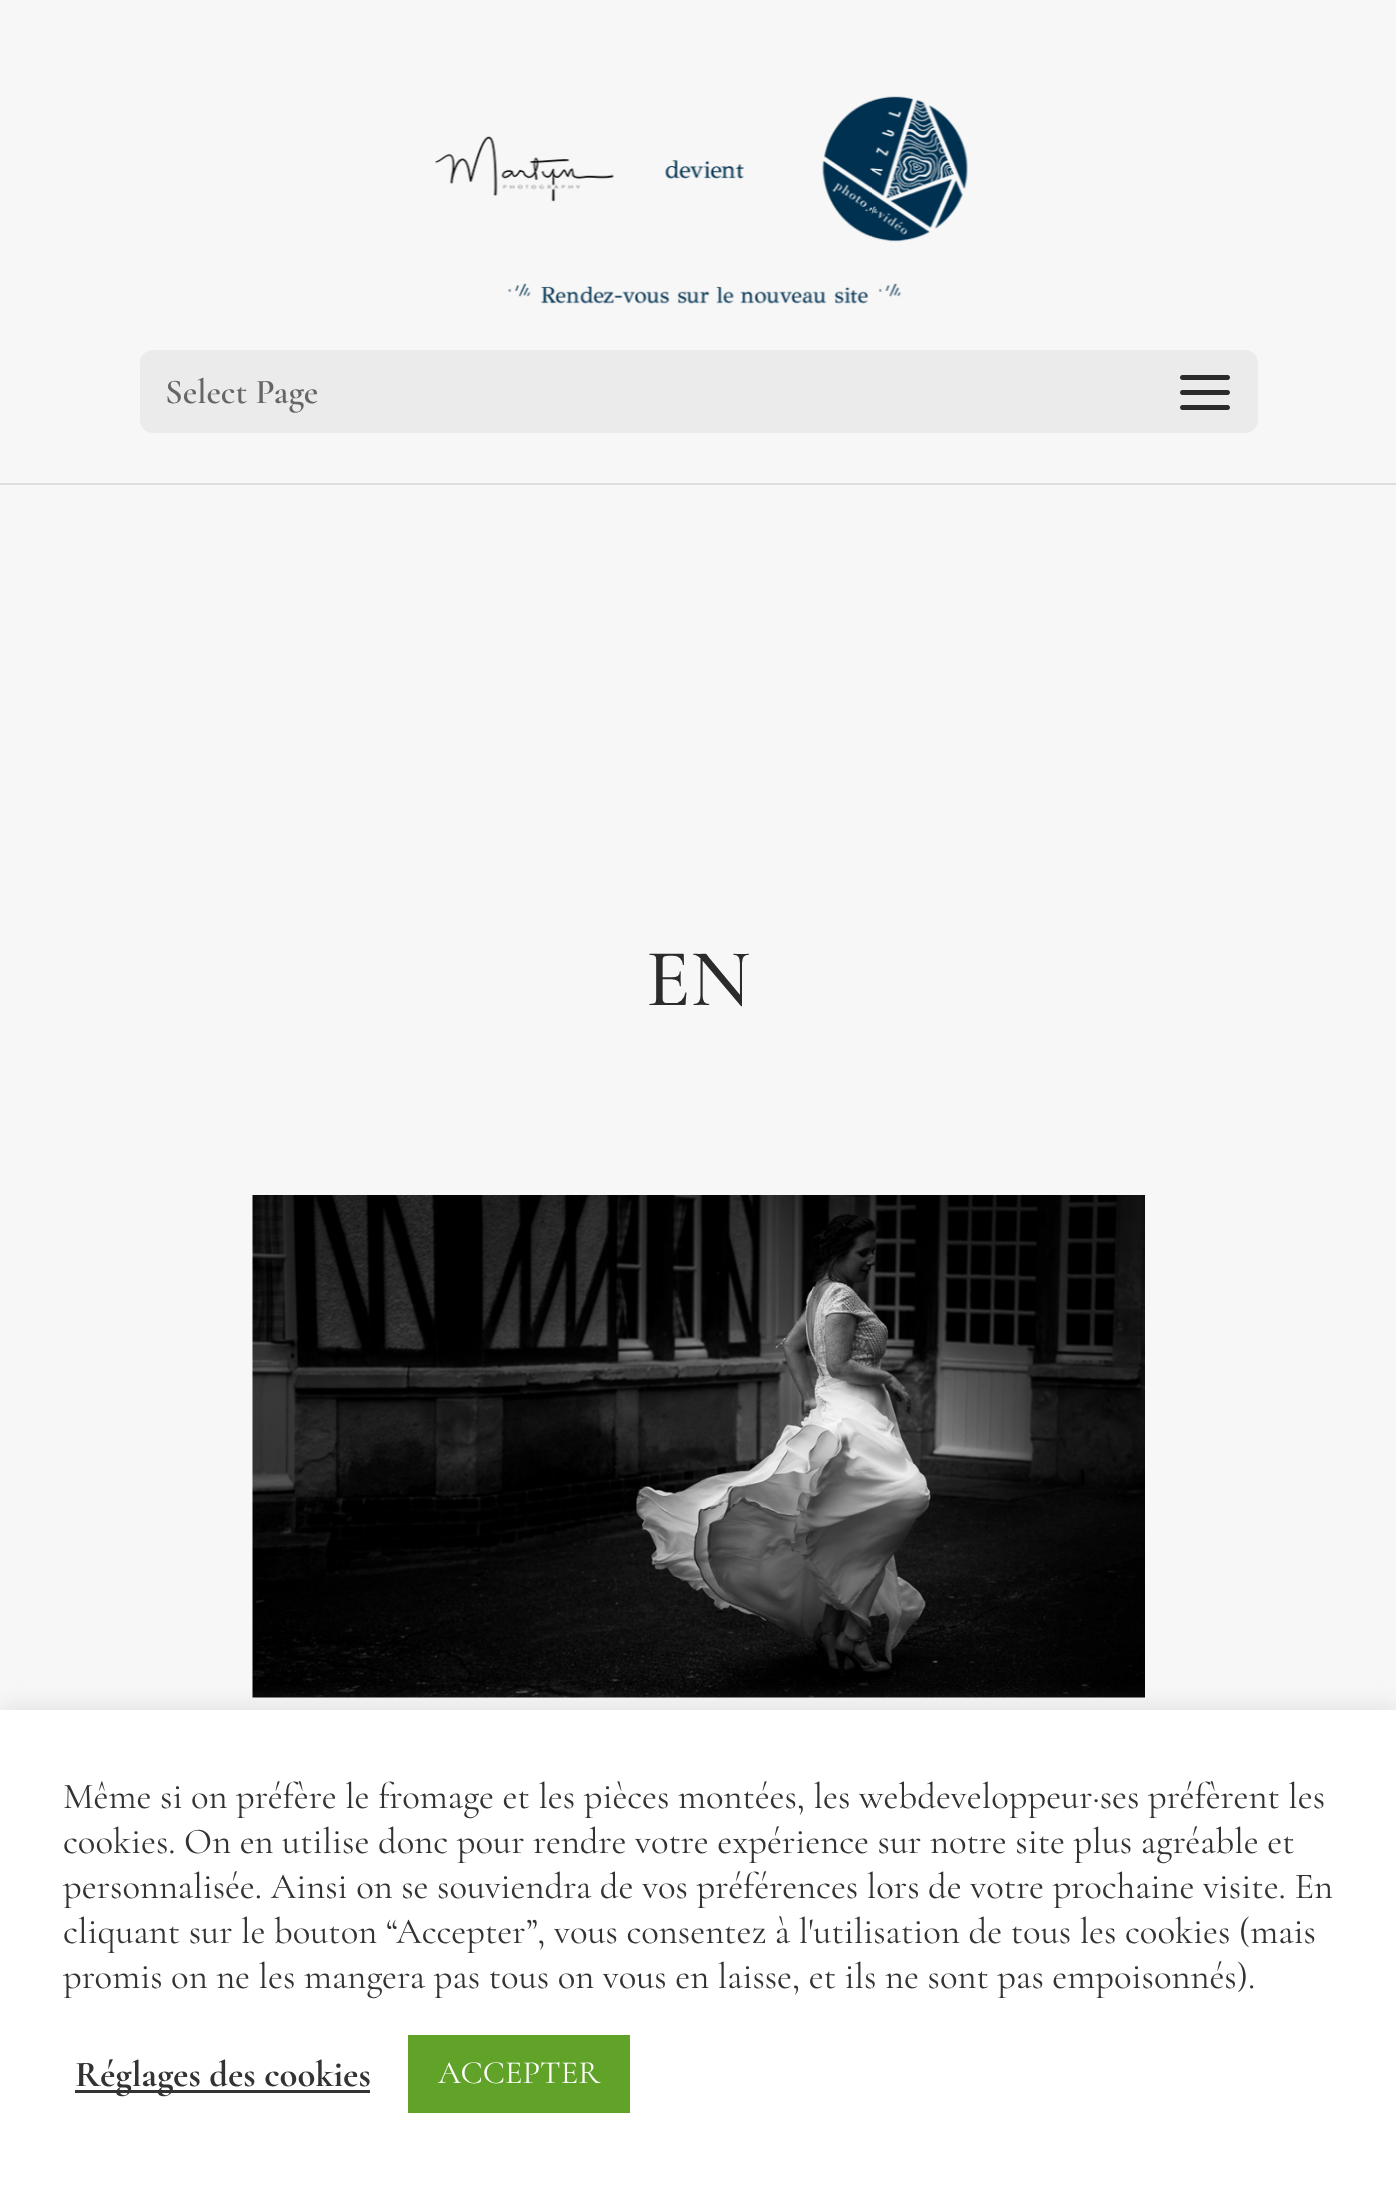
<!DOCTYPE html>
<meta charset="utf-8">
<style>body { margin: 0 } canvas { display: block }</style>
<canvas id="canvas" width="1396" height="2186"></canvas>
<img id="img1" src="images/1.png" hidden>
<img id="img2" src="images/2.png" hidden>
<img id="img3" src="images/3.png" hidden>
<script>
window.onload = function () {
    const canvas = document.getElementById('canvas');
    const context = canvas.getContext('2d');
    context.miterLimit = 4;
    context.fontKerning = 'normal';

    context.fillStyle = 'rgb(247, 247, 247)';
    context.fillRect(0, 0, 1396, 2186);
    context.fillStyle = 'rgb(222, 222, 222)';
    context.beginPath();
    context.moveTo(0, 482);
    context.lineTo(0, 485);
    context.lineTo(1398, 485);
    context.lineTo(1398, 3);
    context.lineTo(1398, 482);
    context.closePath();
    context.fill();
    context.fillStyle = 'rgb(247, 247, 247)';
    context.fillRect(0, 482, 1396, 1);
    context.drawImage(document.getElementById('img1'), 435, 96, 533, 208);
    context.fillStyle = 'rgb(235, 235, 235)';
    context.beginPath();
    context.roundRect(140, 350, 1118, 83, 13);
    context.fill();
    context.drawImage(document.getElementById('img2'), 1180, 375, 50, 35);
    context.drawImage(document.getElementById('img3'), 252, 1195, 893, 503);
    context.fillStyle = 'rgba(172, 171, 171, 0.3)';
    context.filter = 'blur(12.5px)';
    context.beginPath();
    context.rect(0, 1708, 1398, 477);
    context.fill();
    context.filter = 'none';
    context.fillStyle = 'rgb(255, 255, 255)';
    context.fillRect(0, 1710, 1396, 476);
    context.fillStyle = 'rgb(51, 51, 51)';
    context.fillRect(75, 2090, 295, 3);
    context.fillStyle = 'rgb(97, 162, 41)';
    context.fillRect(408, 2035, 222, 78);
    context.font = '600 35px Cormorant Garamond';
    context.fillStyle = 'rgb(102, 102, 102)';
    context.fillText('Select Page', 165, 403);
    context.font = '300 82px Cormorant Garamond';
    context.fillStyle = 'rgb(43, 43, 43)';
    context.fillText('EN', 646, 1005);
    context.font = '300 36.65px "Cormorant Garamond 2"';
    context.fillStyle = 'rgb(51, 51, 51)';
    context.fillText('Même si on préfère le fromage et les pièces montées, les webdeveloppeur·ses préfèrent les', 63, 1808);
    context.fillText('cookies. On en utilise donc pour rendre votre expérience sur notre site plus agréable et', 63, 1853);
    context.fillText('personnalisée. Ainsi on se souviendra de vos préférences lors de votre prochaine visite. En', 63, 1898);
    context.fillText('cliquant sur le bouton “Accepter”, vous consentez à l\'utilisation de tous les cookies (mais', 63, 1943);
    context.fillText('promis on ne les mangera pas tous on vous en laisse, et ils ne sont pas empoisonnés).', 63, 1988);
    context.font = '300 36.65px "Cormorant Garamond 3"';
    context.fillText('Réglages des cookies', 75, 2086);
    context.font = '300 32.5px "Cormorant Garamond 2"';
    context.fillStyle = 'rgb(255, 255, 255)';
    context.fillText('ACCEPTER', 438, 2083);
};
</script>
